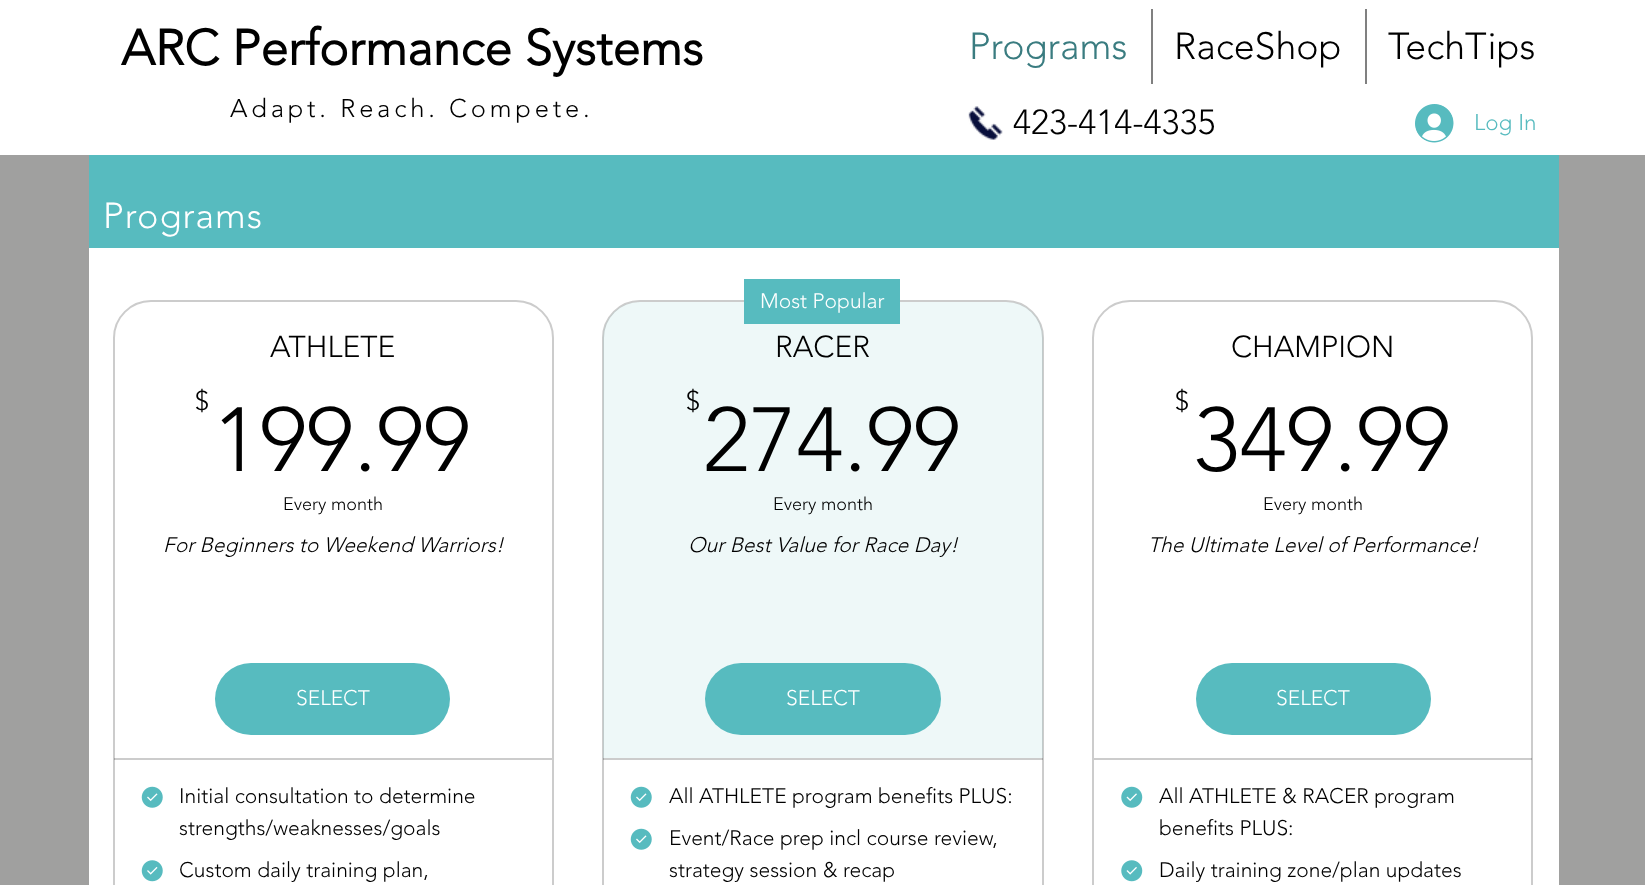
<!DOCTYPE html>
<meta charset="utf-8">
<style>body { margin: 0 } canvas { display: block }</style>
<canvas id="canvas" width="1645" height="885"></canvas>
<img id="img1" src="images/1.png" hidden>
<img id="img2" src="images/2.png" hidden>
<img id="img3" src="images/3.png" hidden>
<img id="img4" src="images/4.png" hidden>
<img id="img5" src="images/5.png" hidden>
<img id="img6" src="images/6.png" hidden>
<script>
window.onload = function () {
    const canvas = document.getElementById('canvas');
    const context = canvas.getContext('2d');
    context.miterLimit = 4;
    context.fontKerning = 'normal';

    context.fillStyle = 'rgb(160, 160, 159)';
    context.fillRect(0, 0, 1645, 885);
    context.fillStyle = 'rgb(255, 255, 255)';
    context.fillRect(0, 0, 1645, 155);
    context.fillStyle = 'rgb(128, 128, 128)';
    context.fillRect(1151, 9, 2, 75);
    context.fillRect(1365, 9, 2, 75);
    context.drawImage(document.getElementById('img1'), 968, 106, 35, 34);
    context.drawImage(document.getElementById('img2'), 1415, 104, 39, 39);
    context.fillStyle = 'rgb(87, 187, 191)';
    context.fillRect(89, 155, 1470, 93);
    context.fillStyle = 'rgb(255, 255, 255)';
    context.fillRect(89, 248, 1470, 637);
    context.beginPath();
    context.roundRect(114, 301, 439, 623, 37);
    context.strokeStyle = 'rgb(204, 204, 204)';
    context.lineWidth = 2;
    context.stroke();
    context.fillStyle = 'rgb(87, 187, 191)';
    context.beginPath();
    context.roundRect(215, 663, 235, 72, 36);
    context.fill();
    context.fillStyle = 'rgba(0, 0, 0, 0.2)';
    context.fillRect(114, 758, 438, 2);
    context.drawImage(document.getElementById('img3'), 141, 786, 22, 22);
    context.drawImage(document.getElementById('img4'), 141, 860, 22, 22);
    context.beginPath();
    context.roundRect(603, 301, 440, 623, 37);
    context.stroke();
    context.fillStyle = 'rgba(87, 187, 191, 0.1)';
    context.beginPath();
    context.roundRect(603, 302, 440, 456, [36, 36, 0, 0]);
    context.fill();
    context.fillStyle = 'rgb(87, 187, 191)';
    context.fillRect(744, 279, 156, 45);
    context.beginPath();
    context.roundRect(705, 663, 236, 72, 36);
    context.fill();
    context.fillStyle = 'rgba(0, 0, 0, 0.2)';
    context.fillRect(603, 758, 440, 2);
    context.drawImage(document.getElementById('img3'), 630, 786, 22, 22);
    context.drawImage(document.getElementById('img3'), 630, 828, 22, 22);
    context.beginPath();
    context.roundRect(1093, 301, 439, 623, 37);
    context.stroke();
    context.fillStyle = 'rgb(87, 187, 191)';
    context.beginPath();
    context.roundRect(1196, 663, 235, 72, 36);
    context.fill();
    context.fillStyle = 'rgba(0, 0, 0, 0.2)';
    context.fillRect(1094, 758, 438, 2);
    context.drawImage(document.getElementById('img5'), 1121, 786, 22, 22);
    context.drawImage(document.getElementById('img6'), 1121, 860, 22, 22);
    context.font = 'bold 49.5px "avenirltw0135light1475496"';
    context.fillStyle = 'rgb(0, 0, 0)';
    context.fillText('ARC Performance Systems', 121, 65);
    context.font = '300 37.5px "avenirltw0135light1475496"';
    context.fillStyle = 'rgb(58, 124, 128)';
    context.fillText('Programs', 969, 59);
    context.fillStyle = 'rgb(0, 0, 0)';
    context.fillText('RaceShop', 1174, 59);
    context.fillText('TechTips', 1388, 59);
    context.letterSpacing = '3.8px';
    context.font = '300 25.5px "avenirltw0135light1475496"';
    context.fillText('Adapt. Reach. Compete.', 230, 117);
    context.letterSpacing = '0px';
    context.font = '300 34.5px "avenirltw0135light1475496"';
    context.fillText('423-414-4335', 1013, 134);
    context.font = '300 22.5px "avenirltw0135light1475496"';
    context.fillStyle = 'rgb(87, 187, 191)';
    context.fillText('Log In', 1474, 130);
    context.letterSpacing = '1px';
    context.font = '300 36px "avenirltw0135light1475496"';
    context.fillStyle = 'rgb(255, 255, 255)';
    context.fillText('Programs', 103, 228);
    context.letterSpacing = '0px';
    context.font = '300 30px "avenirltw0135light1475496"';
    context.fillStyle = 'rgb(0, 0, 0)';
    context.fillText('ATHLETE', 270, 357);
    context.font = '300 27px "avenirltw0135light1475496"';
    context.fillText('$', 195, 410);
    context.font = '300 90px "avenirltw0135light1475496"';
    context.fillText('199.99', 213, 471);
    context.font = '300 18px "avenirltw0135light1475496"';
    context.fillText('Every month', 283, 510);
    context.font = 'italic 300 21px "avenirltw0135light1475496"';
    context.fillText('For Beginners to Weekend Warriors!', 163, 552);
    context.font = '300 21px "avenirltw0135light1475496"';
    context.fillStyle = 'rgb(255, 255, 255)';
    context.fillText('SELECT', 296, 705);
    context.fillStyle = 'rgb(0, 0, 0)';
    context.fillText('Initial consultation to determine', 179, 803);
    context.fillText('strengths/weaknesses/goals', 179, 835);
    context.fillText('Custom daily training plan,', 179, 877);
    context.fillStyle = 'rgb(255, 255, 255)';
    context.fillText('Most Popular', 760, 308);
    context.font = '300 30px "avenirltw0135light1475496"';
    context.fillStyle = 'rgb(0, 0, 0)';
    context.fillText('RACER', 775, 357);
    context.font = '300 27px "avenirltw0135light1475496"';
    context.fillText('$', 686, 410);
    context.font = '300 90px "avenirltw0135light1475496"';
    context.fillText('274.99', 703, 471);
    context.font = '300 18px "avenirltw0135light1475496"';
    context.fillText('Every month', 773, 510);
    context.font = 'italic 300 21px "avenirltw0135light1475496"';
    context.fillText('Our Best Value for Race Day!', 688, 552);
    context.font = '300 21px "avenirltw0135light1475496"';
    context.fillStyle = 'rgb(255, 255, 255)';
    context.fillText('SELECT', 786, 705);
    context.fillStyle = 'rgb(0, 0, 0)';
    context.fillText('All ATHLETE program benefits PLUS:', 669, 803);
    context.fillText('Event/Race prep incl course review,', 669, 845);
    context.fillText('strategy session & recap', 669, 877);
    context.font = '300 30px "avenirltw0135light1475496"';
    context.fillText('CHAMPION', 1231, 357);
    context.font = '300 27px "avenirltw0135light1475496"';
    context.fillText('$', 1175, 410);
    context.font = '300 90px "avenirltw0135light1475496"';
    context.fillText('349.99', 1193, 471);
    context.font = '300 18px "avenirltw0135light1475496"';
    context.fillText('Every month', 1263, 510);
    context.font = 'italic 300 21px "avenirltw0135light1475496"';
    context.fillText('The Ultimate Level of Performance!', 1148, 552);
    context.font = '300 21px "avenirltw0135light1475496"';
    context.fillStyle = 'rgb(255, 255, 255)';
    context.fillText('SELECT', 1276, 705);
    context.fillStyle = 'rgb(0, 0, 0)';
    context.fillText('All ATHLETE & RACER program', 1159, 803);
    context.fillText('benefits PLUS:', 1159, 835);
    context.fillText('Daily training zone/plan updates', 1159, 877);
};
</script>
